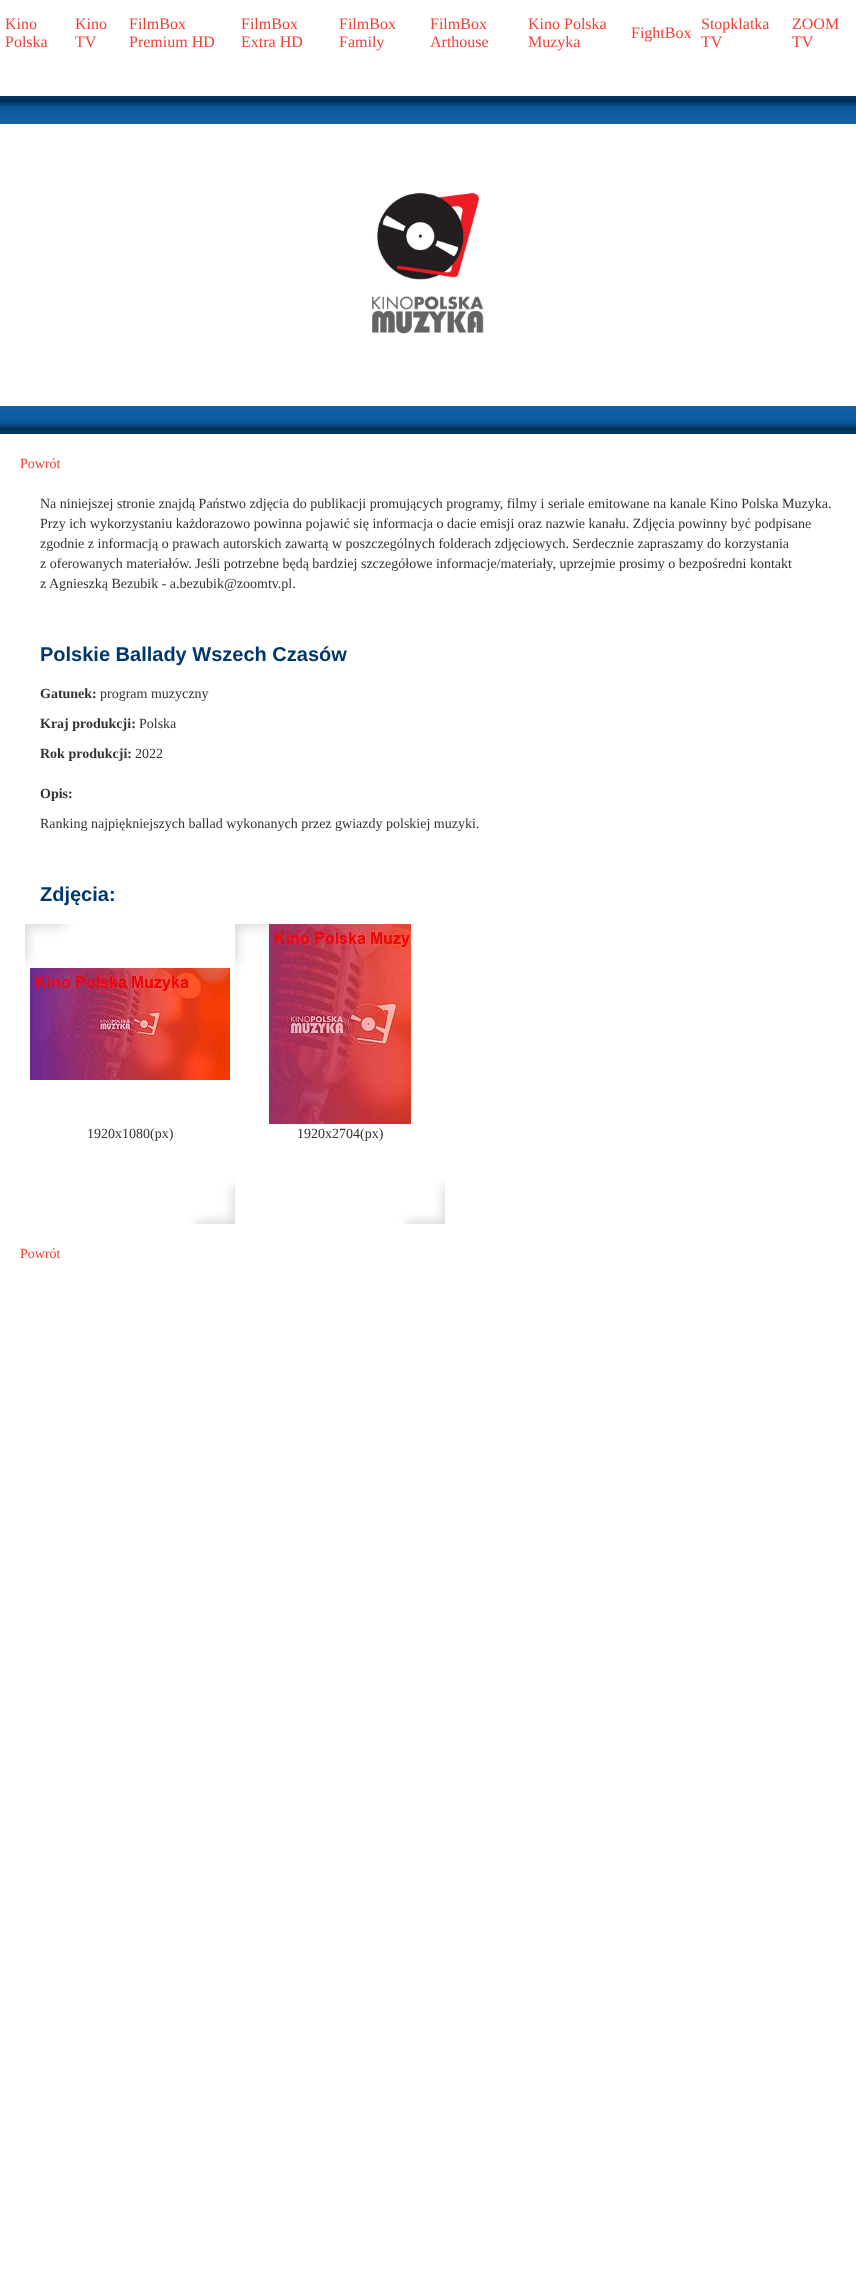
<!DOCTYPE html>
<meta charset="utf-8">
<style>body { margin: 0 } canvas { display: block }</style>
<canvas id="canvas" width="856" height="2283"></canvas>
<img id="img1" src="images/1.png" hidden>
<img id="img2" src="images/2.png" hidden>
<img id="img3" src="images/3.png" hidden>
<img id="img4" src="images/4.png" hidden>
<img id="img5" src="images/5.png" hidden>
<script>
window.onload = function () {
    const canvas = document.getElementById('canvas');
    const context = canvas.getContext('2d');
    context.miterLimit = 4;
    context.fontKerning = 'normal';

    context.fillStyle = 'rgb(255, 255, 255)';
    context.fillRect(0, 0, 856, 2283);
    context.drawImage(document.getElementById('img1'), 0, 96, 856, 338);
    context.drawImage(document.getElementById('img2'), 372, 193, 112, 141);
    context.drawImage(document.getElementById('img3'), 25, 924, 210, 300);
    context.drawImage(document.getElementById('img4'), 30, 968, 200, 112);
    context.drawImage(document.getElementById('img3'), 235, 924, 210, 300);
    context.drawImage(document.getElementById('img5'), 269, 924, 142, 200);
    context.font = '16px Liberation Serif';
    context.fillStyle = 'rgb(239, 65, 53)';
    context.fillText('Kino', 5, 29);
    context.fillText('Polska', 5, 47);
    context.fillText('Kino', 75, 29);
    context.fillText('TV', 75, 47);
    context.fillText('FilmBox', 129, 29);
    context.fillText('Premium HD', 129, 47);
    context.fillText('FilmBox', 241, 29);
    context.fillText('Extra HD', 241, 47);
    context.fillText('FilmBox', 339, 29);
    context.fillText('Family', 339, 47);
    context.fillText('FilmBox', 430, 29);
    context.fillText('Arthouse', 430, 47);
    context.fillText('Kino Polska', 528, 29);
    context.fillText('Muzyka', 528, 47);
    context.fillText('FightBox', 631, 38);
    context.fillText('Stopklatka', 701, 29);
    context.fillText('TV', 701, 47);
    context.fillText('ZOOM', 792, 29);
    context.fillText('TV', 792, 47);
    context.font = '14px Liberation Serif';
    context.fillText('Powrót', 20, 468);
    context.fillStyle = 'rgb(51, 51, 51)';
    context.fillText('Na niniejszej stronie znajdą Państwo zdjęcia do publikacji promujących programy, filmy i seriale emitowane na kanale Kino Polska Muzyka.', 40, 508);
    context.fillText('Przy ich wykorzystaniu każdorazowo powinna pojawić się informacja o dacie emisji oraz nazwie kanału. Zdjęcia powinny być podpisane', 40, 528);
    context.fillText('zgodnie z informacją o prawach autorskich zawartą w poszczególnych folderach zdjęciowych. Serdecznie zapraszamy do korzystania', 40, 548);
    context.fillText('z oferowanych materiałów. Jeśli potrzebne będą bardziej szczegółowe informacje/materiały, uprzejmie prosimy o bezpośredni kontakt', 40, 568);
    context.fillText('z Agnieszką Bezubik - a.bezubik@zoomtv.pl.', 40, 588);
    context.font = 'bold 20px Liberation Sans';
    context.fillStyle = 'rgb(0, 55, 108)';
    context.fillText('Polskie Ballady Wszech Czasów', 40, 661);
    context.font = 'bold 14px Liberation Serif';
    context.fillStyle = 'rgb(51, 51, 51)';
    context.fillText('Gatunek:', 40, 698);
    context.font = '14px Liberation Serif';
    context.fillText('program muzyczny', 100, 698);
    context.font = 'bold 14px Liberation Serif';
    context.fillText('Kraj produkcji:', 40, 728);
    context.font = '14px Liberation Serif';
    context.fillText('Polska', 139, 728);
    context.font = 'bold 14px Liberation Serif';
    context.fillText('Rok produkcji:', 40, 758);
    context.font = '14px Liberation Serif';
    context.fillText('2022', 135, 758);
    context.font = 'bold 14px Liberation Serif';
    context.fillText('Opis:', 40, 798);
    context.font = '14px Liberation Serif';
    context.fillText('Ranking najpiękniejszych ballad wykonanych przez gwiazdy polskiej muzyki.', 40, 828);
    context.font = 'bold 20px Liberation Sans';
    context.fillStyle = 'rgb(0, 55, 108)';
    context.fillText('Zdjęcia:', 40, 901);
    context.font = '14px Liberation Serif';
    context.fillStyle = 'rgb(51, 51, 51)';
    context.fillText('1920x1080(px)', 87, 1138);
    context.fillText('1920x2704(px)', 297, 1138);
    context.fillStyle = 'rgb(239, 65, 53)';
    context.fillText('Powrót', 20, 1258);
};
</script>
